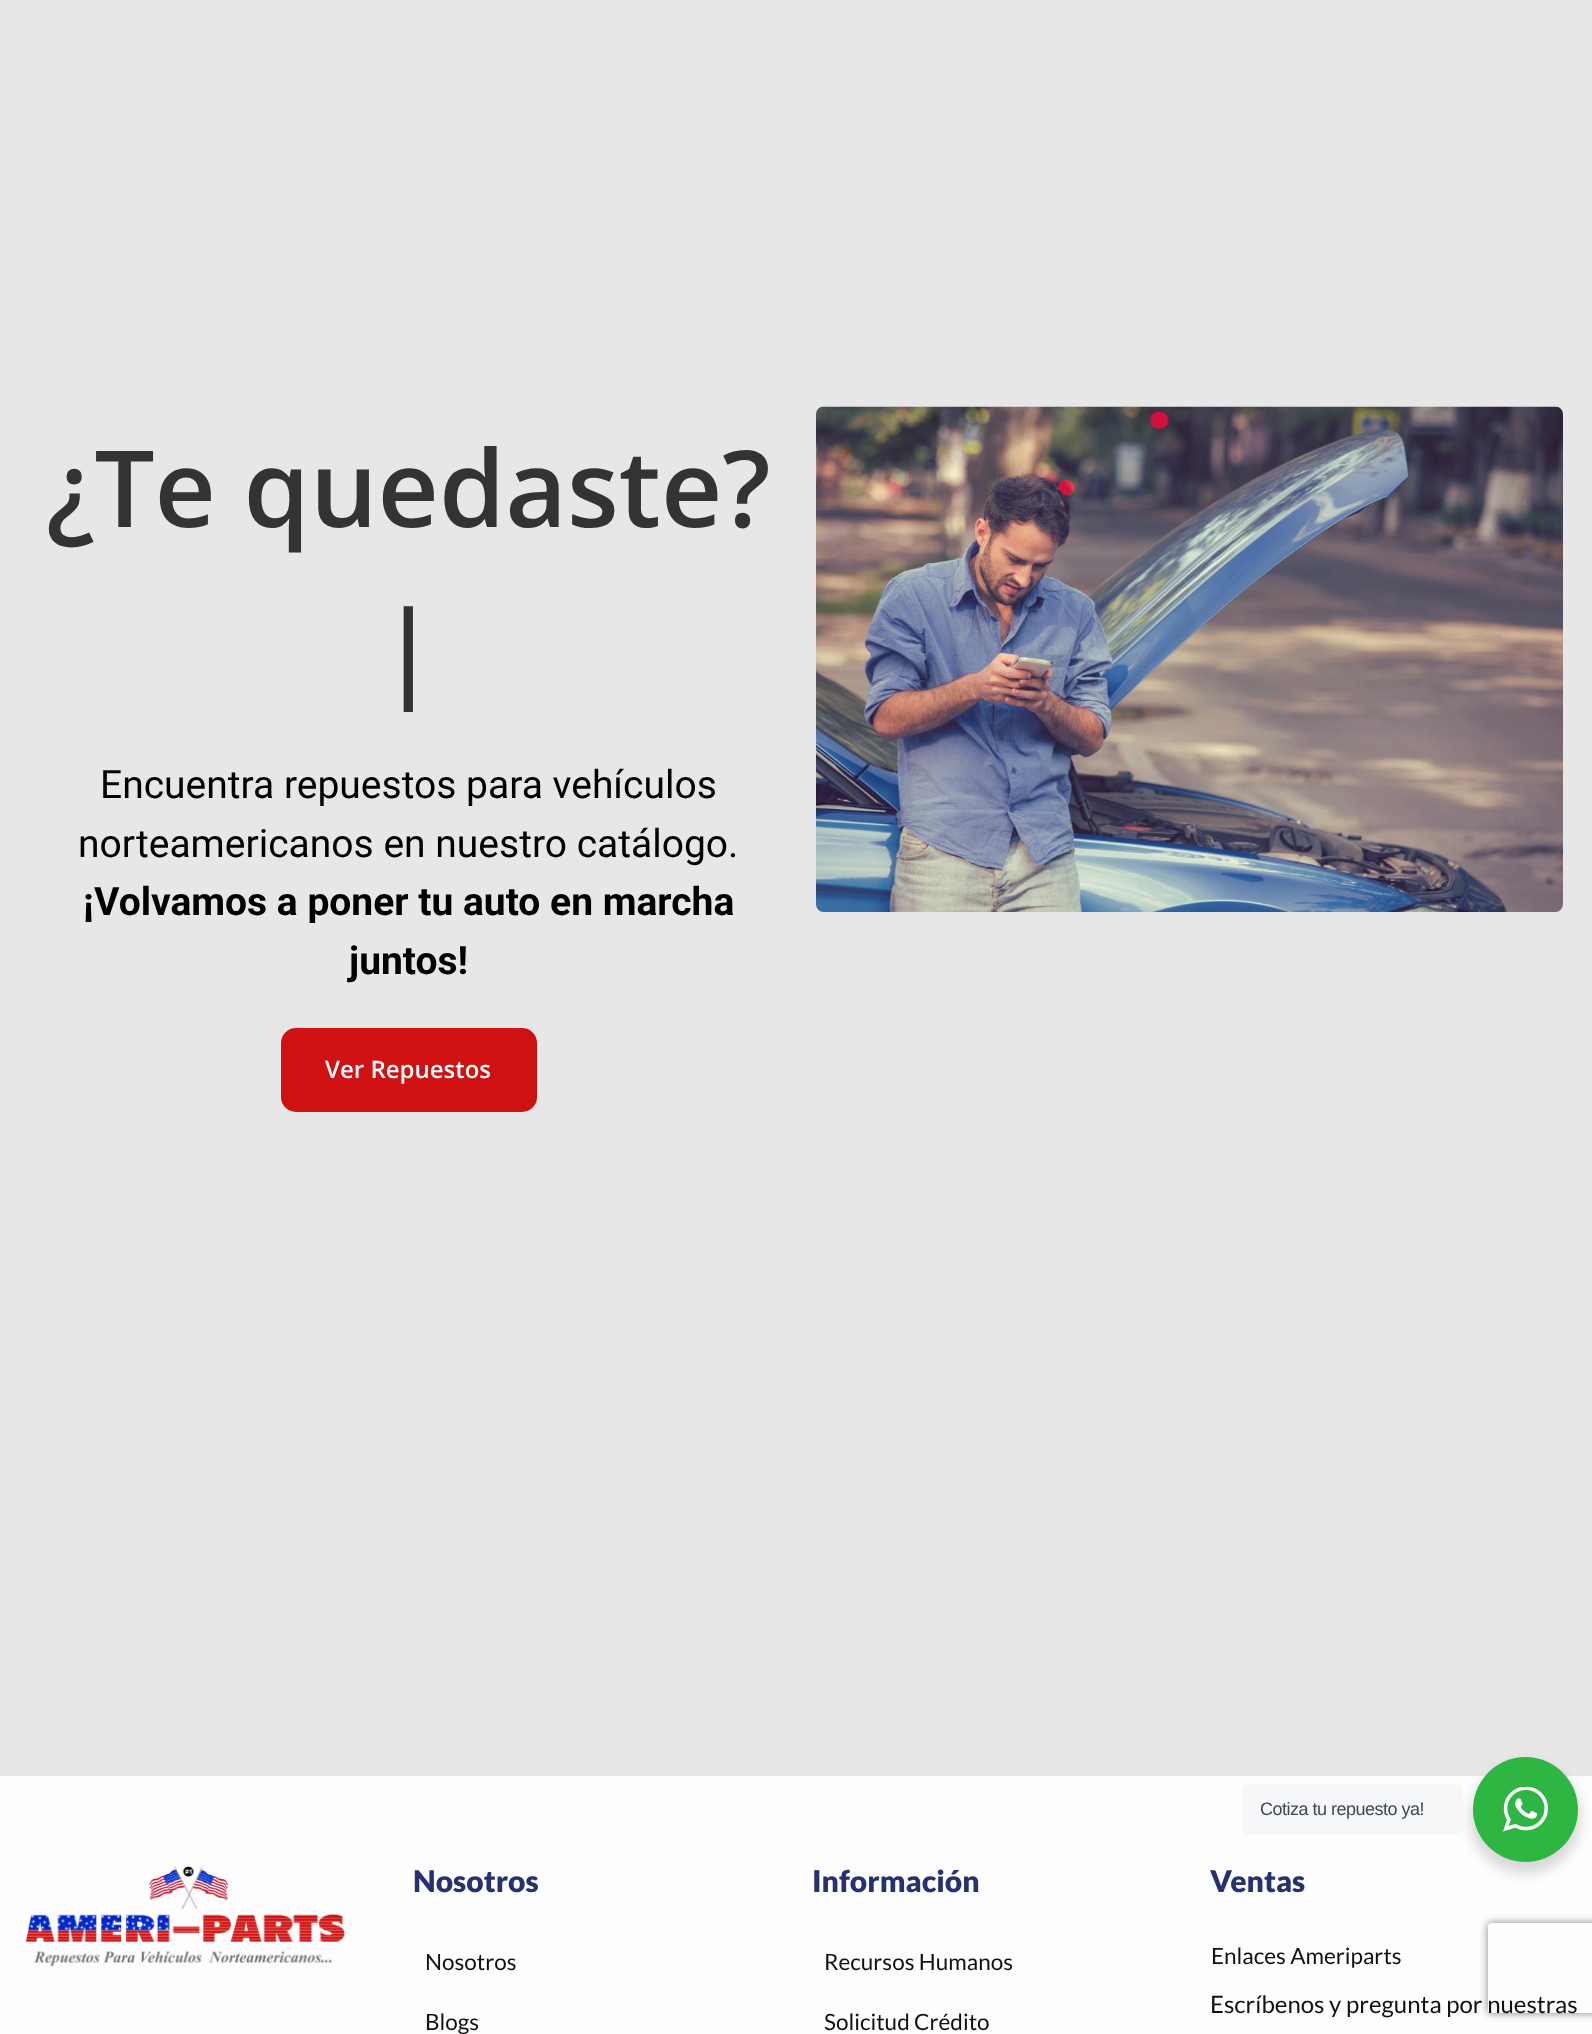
<!DOCTYPE html>
<meta charset="utf-8">
<style>body { margin: 0 } canvas { display: block }</style>
<canvas id="canvas" width="1592" height="2034"></canvas>
<img id="img1" src="images/1.png" hidden>
<img id="img2" src="images/2.png" hidden>
<img id="img3" src="images/3.png" hidden>
<script>
window.onload = function () {
    const canvas = document.getElementById('canvas');
    const context = canvas.getContext('2d');
    context.miterLimit = 4;
    context.fontKerning = 'normal';

    context.fillStyle = 'rgb(231, 231, 231)';
    context.fillRect(0, 0, 1592, 2034);
    context.fillStyle = 'rgb(208, 17, 17)';
    context.beginPath();
    context.roundRect(281, 1028, 256, 84, 15);
    context.fill();
    context.drawImage(document.getElementById('img1'), 816, 406, 747, 506);
    context.fillStyle = 'rgb(253, 253, 253)';
    context.fillRect(0, 1776, 1592, 258);
    context.fillStyle = 'rgba(0, 0, 0, 0.14)';
    context.filter = 'blur(6px)';
    context.beginPath();
    context.roundRect(1470, 1763, 111, 111, 55.5);
    context.fill();
    context.filter = 'none';
    context.fillStyle = 'rgb(245, 247, 249)';
    context.beginPath();
    context.roundRect(1242, 1784, 221, 51, 6);
    context.fill();
    context.fillStyle = 'rgb(45, 183, 66)';
    context.beginPath();
    context.arc(1525.5, 1809.5, 52.5, 0, 2 * Math.PI);
    context.fill();
    context.drawImage(document.getElementById('img2'), 1503, 1787, 45, 45);
    context.drawImage(document.getElementById('img3'), 25, 1866, 320, 101);
    context.save();
    context.beginPath();
    context.moveTo(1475, 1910);
    context.lineTo(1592, 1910);
    context.lineTo(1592, 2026);
    context.lineTo(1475, 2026);
    context.closePath();
    context.moveTo(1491, 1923);
    context.lineTo(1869, 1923);
    context.bezierCurveTo(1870.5, 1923, 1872, 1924.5, 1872, 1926);
    context.lineTo(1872, 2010);
    context.bezierCurveTo(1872, 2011.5, 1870.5, 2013, 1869, 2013);
    context.lineTo(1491, 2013);
    context.bezierCurveTo(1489.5, 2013, 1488, 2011.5, 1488, 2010);
    context.lineTo(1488, 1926);
    context.bezierCurveTo(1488, 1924.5, 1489.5, 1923, 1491, 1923);
    context.closePath();
    context.clip('evenodd');
    context.fillStyle = 'rgb(128, 128, 128)';
    context.filter = 'blur(4px)';
    context.beginPath();
    context.roundRect(1488, 1923, 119, 90, 3);
    context.fill();
    context.filter = 'none';
    context.restore();
    context.font = '600 106.5px Open Sans';
    context.fillStyle = 'rgb(51, 51, 51)';
    context.fillText('¿Te quedaste?', 46, 527);
    context.fillText('|', 379, 687);
    context.font = '39px Roboto';
    context.fillStyle = 'rgb(2, 1, 1)';
    context.fillText('Encuentra repuestos para vehículos', 100, 798);
    context.fillText('norteamericanos en nuestro catálogo.', 78, 857);
    context.font = 'bold 39px Roboto';
    context.fillText('¡Volvamos a poner tu auto en marcha', 83, 915);
    context.fillText('juntos!', 349, 974);
    context.font = '600 24px Open Sans';
    context.fillStyle = 'rgb(255, 255, 255)';
    context.fillText('Ver Repuestos', 325, 1078);
    context.letterSpacing = '-0.5px';
    context.font = '18px Liberation Sans';
    context.fillStyle = 'rgb(67, 71, 78)';
    context.fillText('Cotiza tu repuesto ya!', 1260, 1815);
    context.letterSpacing = '0px';
    context.font = '900 30px Lato';
    context.fillStyle = 'rgb(39, 49, 113)';
    context.fillText('Nosotros', 413, 1892);
    context.font = '22.5px Lato';
    context.fillStyle = 'rgb(17, 17, 17)';
    context.fillText('Nosotros', 425, 1970);
    context.fillText('Blogs', 425, 2030);
    context.font = '900 30px Lato';
    context.fillStyle = 'rgb(39, 49, 113)';
    context.fillText('Información', 812, 1892);
    context.font = '22.5px Lato';
    context.fillStyle = 'rgb(17, 17, 17)';
    context.fillText('Recursos Humanos', 824, 1970);
    context.fillText('Solicitud Crédito', 824, 2030);
    context.font = '900 30px Lato';
    context.fillStyle = 'rgb(39, 49, 113)';
    context.fillText('Ventas', 1210, 1892);
    context.font = '22.5px Lato';
    context.fillStyle = 'rgb(17, 17, 17)';
    context.fillText('Enlaces Ameriparts', 1211, 1964);
    context.font = '24px Lato';
    context.fillText('Escríbenos y pregunta por nuestras', 1210, 2013);
};
</script>
